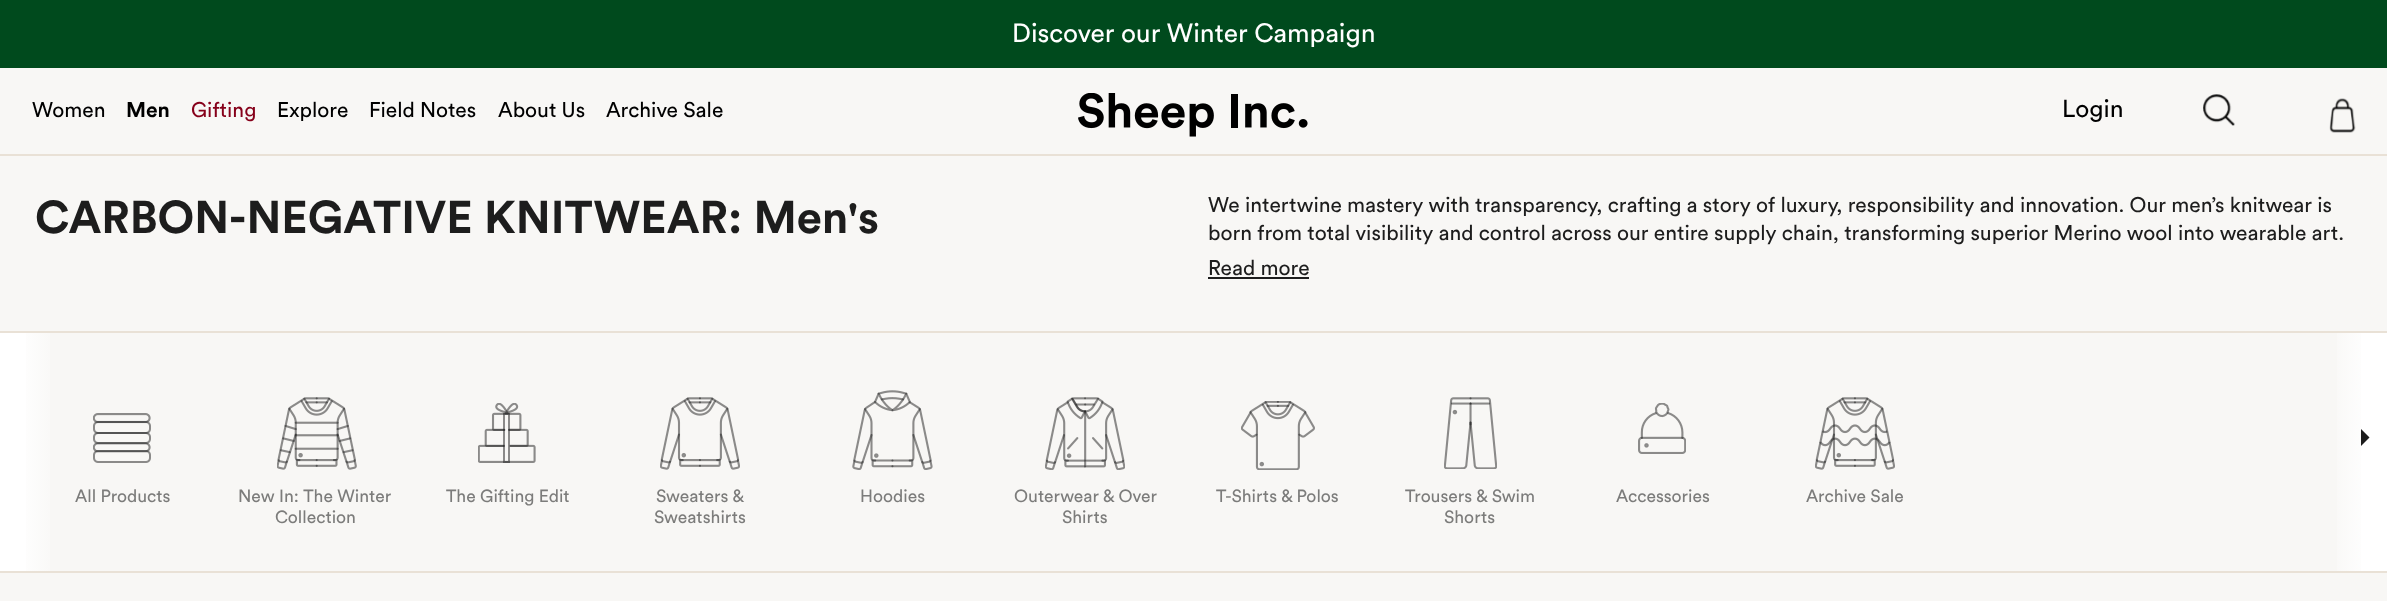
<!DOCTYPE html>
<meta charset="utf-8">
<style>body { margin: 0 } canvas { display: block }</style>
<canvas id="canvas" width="2387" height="601"></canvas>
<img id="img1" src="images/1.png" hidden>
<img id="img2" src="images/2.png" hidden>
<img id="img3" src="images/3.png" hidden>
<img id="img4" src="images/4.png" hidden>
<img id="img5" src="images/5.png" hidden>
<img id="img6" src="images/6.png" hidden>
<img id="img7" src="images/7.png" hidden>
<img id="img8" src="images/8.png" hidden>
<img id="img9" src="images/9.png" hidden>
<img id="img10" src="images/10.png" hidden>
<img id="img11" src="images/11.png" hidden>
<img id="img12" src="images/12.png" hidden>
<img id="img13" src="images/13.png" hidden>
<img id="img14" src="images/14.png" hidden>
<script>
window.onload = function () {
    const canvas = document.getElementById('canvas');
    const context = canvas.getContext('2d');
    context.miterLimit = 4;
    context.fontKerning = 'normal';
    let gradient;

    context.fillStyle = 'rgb(248, 247, 245)';
    context.fillRect(0, 0, 2387, 601);
    context.fillStyle = 'rgb(233, 225, 214)';
    context.fillRect(0, 154, 2387, 2);
    context.fillStyle = 'rgb(0, 74, 29)';
    context.fillRect(0, 0, 2387, 68);
    context.drawImage(document.getElementById('img1'), 1078, 93, 230, 44);
    context.drawImage(document.getElementById('img2'), 2203, 94, 32, 32);
    context.drawImage(document.getElementById('img3'), 2329, 98, 27, 35);
    context.fillStyle = 'rgb(29, 29, 29)';
    context.fillRect(1208, 277, 101, 2);
    context.fillStyle = 'rgb(233, 225, 214)';
    context.fillRect(0, 331, 2387, 2);
    context.fillStyle = 'rgb(255, 255, 255)';
    context.fillRect(0, 333, 26, 238);
    gradient = context.createLinearGradient(17, 452, 61, 452);
    gradient.addColorStop(0, 'rgb(255, 255, 255)');
    gradient.addColorStop(1, 'rgb(248, 247, 245)');
    context.fillStyle = gradient;
    context.fillRect(26, 333, 24, 238);
    context.drawImage(document.getElementById('img4'), 93, 413, 58, 50);
    context.drawImage(document.getElementById('img5'), 277, 397, 80, 73);
    context.drawImage(document.getElementById('img6'), 478, 403, 58, 60);
    context.drawImage(document.getElementById('img7'), 660, 397, 80, 73);
    context.drawImage(document.getElementById('img8'), 852, 390, 81, 80);
    context.drawImage(document.getElementById('img9'), 1045, 397, 80, 73);
    context.drawImage(document.getElementById('img10'), 1241, 401, 74, 69);
    context.drawImage(document.getElementById('img11'), 1444, 397, 53, 72);
    context.drawImage(document.getElementById('img12'), 1638, 403, 48, 51);
    context.drawImage(document.getElementById('img13'), 1815, 397, 80, 73);
    gradient = context.createLinearGradient(2326, 452, 2370, 452);
    gradient.addColorStop(0, 'rgb(248, 247, 245)');
    gradient.addColorStop(1, 'rgb(255, 255, 255)');
    context.fillStyle = gradient;
    context.fillRect(2337, 333, 24, 238);
    context.fillStyle = 'rgb(255, 255, 255)';
    context.fillRect(2361, 333, 26, 238);
    context.drawImage(document.getElementById('img14'), 2361, 429, 9, 17);
    context.fillStyle = 'rgb(233, 225, 214)';
    context.fillRect(0, 571, 2387, 2);
    context.font = '26.25px Circular';
    context.fillStyle = 'rgb(255, 255, 255)';
    context.fillText('Discover our Winter Campaign', 1012, 42);
    context.font = '21px Circular';
    context.fillStyle = 'rgb(0, 0, 0)';
    context.fillText('Women', 32, 117);
    context.font = 'bold 21px Circular';
    context.fillText('Men', 126, 117);
    context.font = '21px Circular';
    context.fillStyle = 'rgb(134, 0, 26)';
    context.fillText('Gifting', 191, 117);
    context.fillStyle = 'rgb(0, 0, 0)';
    context.fillText('Explore', 277, 117);
    context.fillText('Field Notes', 369, 117);
    context.fillText('About Us', 498, 117);
    context.fillText('Archive Sale', 606, 117);
    context.font = '24.5px Circular';
    context.fillText('Login', 2062, 117);
    context.font = 'bold 45.5px Circular';
    context.fillStyle = 'rgb(29, 29, 29)';
    context.fillText('CARBON-NEGATIVE KNITWEAR: Men\'s', 35, 233);
    context.font = '21px Circular';
    context.fillText('We intertwine mastery with transparency, crafting a story of luxury, responsibility and innovation. Our men’s knitwear is', 1208, 212);
    context.fillText('born from total visibility and control across our entire supply chain, transforming superior Merino wool into wearable art.', 1208, 240);
    context.fillText('Read more', 1208, 275);
    context.font = '17.5px Circular';
    context.fillStyle = 'rgb(124, 124, 123)';
    context.fillText('All Products', 75, 502);
    context.fillText('New In: The Winter', 238, 502);
    context.fillText('Collection', 275, 523);
    context.fillText('The Gifting Edit', 446, 502);
    context.fillText('Sweaters &', 656, 502);
    context.fillText('Sweatshirts', 654, 523);
    context.fillText('Hoodies', 860, 502);
    context.fillText('Outerwear & Over', 1014, 502);
    context.fillText('Shirts', 1062, 523);
    context.fillText('T-Shirts & Polos', 1216, 502);
    context.fillText('Trousers & Swim', 1405, 502);
    context.fillText('Shorts', 1444, 523);
    context.fillText('Accessories', 1616, 502);
    context.fillText('Archive Sale', 1806, 502);
};
</script>
